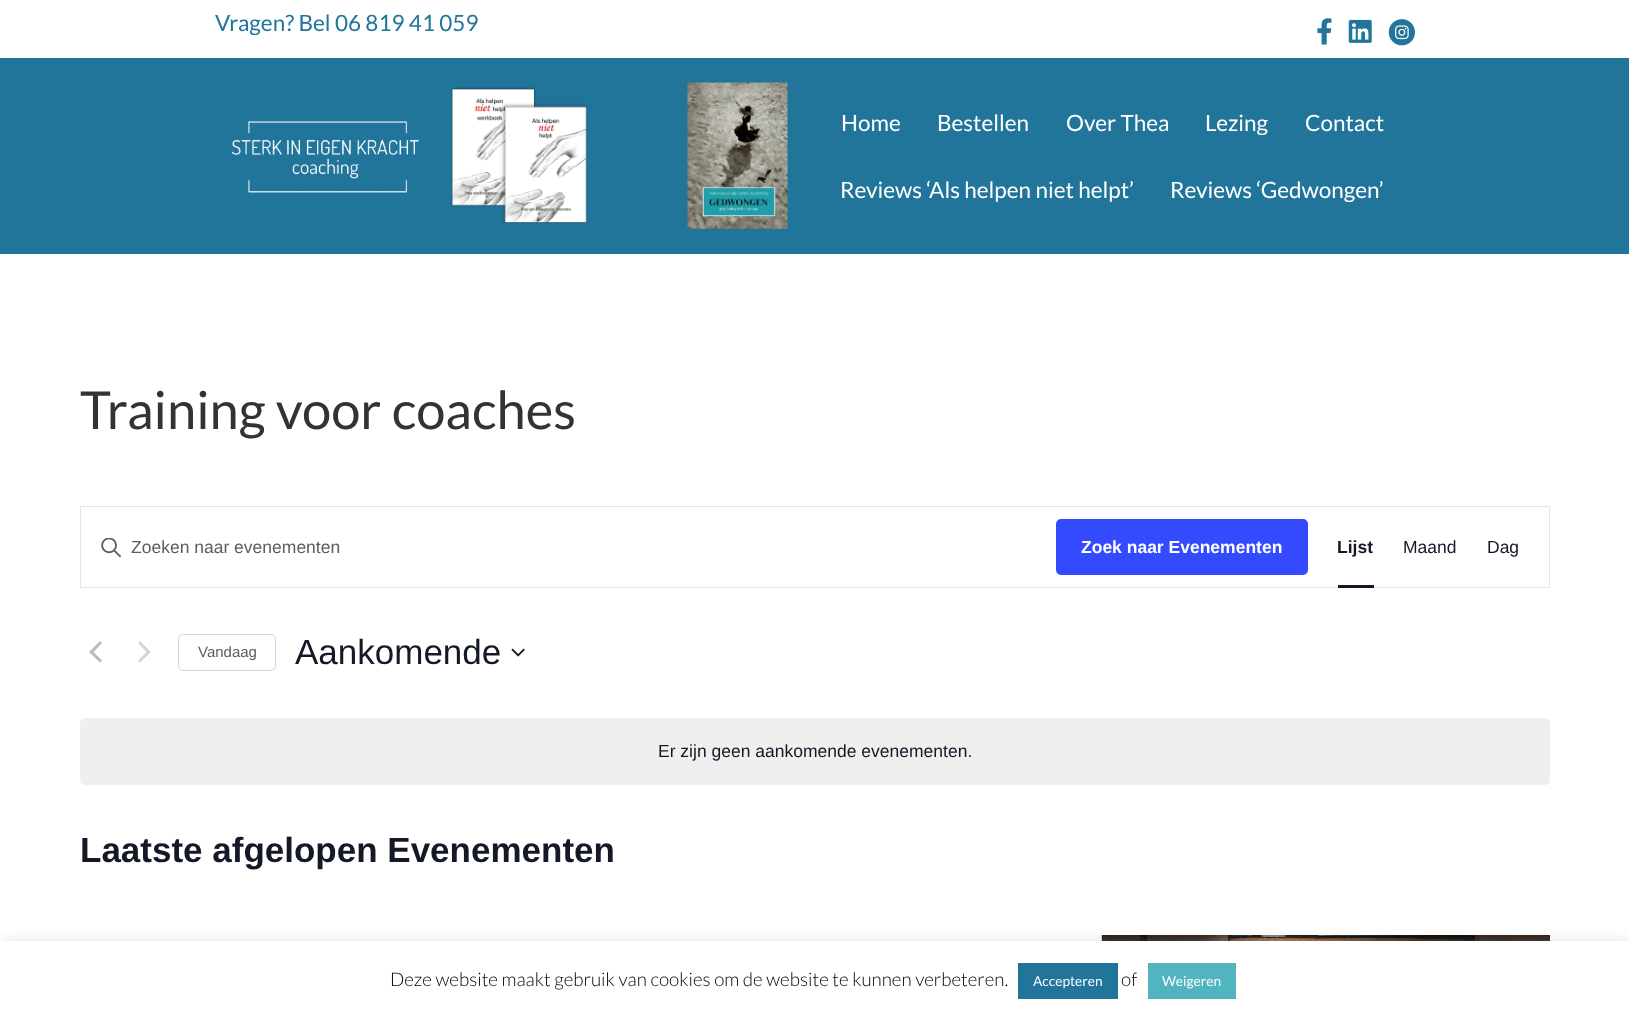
<!DOCTYPE html>
<meta charset="utf-8">
<style>body { margin: 0 } canvas { display: block }</style>
<canvas id="canvas" width="1629" height="1013"></canvas>
<img id="img1" src="images/1.png" hidden>
<img id="img2" src="images/2.png" hidden>
<img id="img3" src="images/3.png" hidden>
<img id="img4" src="images/4.png" hidden>
<img id="img5" src="images/5.png" hidden>
<img id="img6" src="images/6.png" hidden>
<img id="img7" src="images/7.png" hidden>
<img id="img8" src="images/8.png" hidden>
<img id="img9" src="images/9.png" hidden>
<script>
window.onload = function () {
    const canvas = document.getElementById('canvas');
    const context = canvas.getContext('2d');
    context.miterLimit = 4;
    context.fontKerning = 'normal';

    context.fillStyle = 'rgb(255, 255, 255)';
    context.fillRect(0, 0, 1629, 1013);
    context.drawImage(document.getElementById('img1'), 1317, 18, 15, 27);
    context.drawImage(document.getElementById('img2'), 1348, 19, 24, 24);
    context.drawImage(document.getElementById('img3'), 1388, 19, 27, 27);
    context.fillStyle = 'rgb(33, 117, 155)';
    context.fillRect(0, 58, 1629, 196);
    context.drawImage(document.getElementById('img4'), 231, 121, 189, 72);
    context.drawImage(document.getElementById('img5'), 451, 87, 137, 137);
    context.drawImage(document.getElementById('img6'), 687, 82, 101, 147);
    context.strokeStyle = 'rgb(228, 228, 228)';
    context.strokeRect(80.5, 506.5, 1469, 81);
    context.drawImage(document.getElementById('img7'), 101, 538, 20, 20);
    context.fillStyle = 'rgb(51, 74, 255)';
    context.beginPath();
    context.roundRect(1056, 519, 252, 56, 5);
    context.fill();
    context.fillStyle = 'rgb(20, 24, 39)';
    context.fillRect(1338, 585, 36, 3);
    context.fillStyle = 'rgb(186, 186, 186)';
    context.beginPath();
    context.moveTo(102, 660.5);
    context.lineTo(100, 662.5);
    context.lineTo(89, 652);
    context.lineTo(100, 641);
    context.lineTo(102, 643);
    context.lineTo(93.5, 652);
    context.closePath();
    context.fill();
    context.fillStyle = 'rgb(213, 213, 213)';
    context.beginPath();
    context.moveTo(138, 643);
    context.lineTo(140, 641);
    context.lineTo(151, 652);
    context.lineTo(140, 662.5);
    context.lineTo(138, 660.5);
    context.lineTo(146.5, 652);
    context.closePath();
    context.fill();
    context.beginPath();
    context.roundRect(178.5, 634.5, 97, 36, 4.5);
    context.strokeStyle = 'rgb(213, 213, 213)';
    context.stroke();
    context.drawImage(document.getElementById('img8'), 511, 648, 14, 9);
    context.fillStyle = 'rgb(239, 239, 240)';
    context.beginPath();
    context.roundRect(80, 718, 1470, 67, 5);
    context.fill();
    context.drawImage(document.getElementById('img9'), 1101, 935, 449, 6);
    context.fillStyle = 'rgba(172, 171, 171, 0.3)';
    context.filter = 'blur(6px)';
    context.beginPath();
    context.rect(0, 940, 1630, 73);
    context.fill();
    context.filter = 'none';
    context.fillStyle = 'rgb(255, 255, 255)';
    context.fillRect(0, 941, 1629, 72);
    context.fillStyle = 'rgb(33, 117, 155)';
    context.fillRect(1018, 963, 100, 36);
    context.fillStyle = 'rgb(81, 180, 193)';
    context.fillRect(1148, 963, 88, 36);
    context.font = '22.5px Lato';
    context.fillStyle = 'rgb(33, 117, 155)';
    context.fillText('Vragen? Bel 06 819 41 059', 215, 31);
    context.fillStyle = 'rgb(255, 255, 255)';
    context.fillText('Home', 841, 131);
    context.fillText('Bestellen', 937, 131);
    context.fillText('Over Thea', 1066, 131);
    context.fillText('Lezing', 1205, 131);
    context.fillText('Contact', 1305, 131);
    context.fillText('Reviews ‘Als helpen niet helpt’', 840, 198);
    context.fillText('Reviews ‘Gedwongen’', 1170, 198);
    context.font = '52.5px Lato';
    context.fillStyle = 'rgb(51, 51, 51)';
    context.fillText('Training voor coaches', 80, 429);
    context.font = '17.5px Liberation Sans';
    context.fillStyle = 'rgb(93, 93, 93)';
    context.fillText('Zoeken naar evenementen', 131, 553);
    context.font = 'bold 17.5px Liberation Sans';
    context.fillStyle = 'rgb(255, 255, 255)';
    context.fillText('Zoek naar Evenementen', 1081, 553);
    context.fillStyle = 'rgb(20, 24, 39)';
    context.fillText('Lijst', 1337, 553);
    context.font = '17.5px Liberation Sans';
    context.fillText('Maand', 1403, 553);
    context.fillText('Dag', 1487, 553);
    context.font = '15px Liberation Sans';
    context.fillStyle = 'rgb(93, 93, 93)';
    context.fillText('Vandaag', 198, 657);
    context.font = '35px Liberation Sans';
    context.fillStyle = 'rgb(20, 24, 39)';
    context.fillText('Aankomende', 295, 664);
    context.font = '17.5px Liberation Sans';
    context.fillText('Er zijn geen aankomende evenementen.', 658, 757);
    context.font = 'bold 35px Liberation Sans';
    context.fillText('Laatste afgelopen Evenementen', 80, 862);
    context.font = '300 18.75px Lato';
    context.fillStyle = 'rgb(0, 0, 0)';
    context.fillText('Deze website maakt gebruik van cookies om de website te kunnen verbeteren.', 390, 986);
    context.font = '13.75px Lato';
    context.fillStyle = 'rgb(255, 255, 255)';
    context.fillText('Accepteren', 1033, 986);
    context.font = '300 18.75px Lato';
    context.fillStyle = 'rgb(0, 0, 0)';
    context.fillText('of', 1121, 986);
    context.font = '13.75px Lato';
    context.fillStyle = 'rgb(255, 255, 255)';
    context.fillText('Weigeren', 1162, 986);
};
</script>
